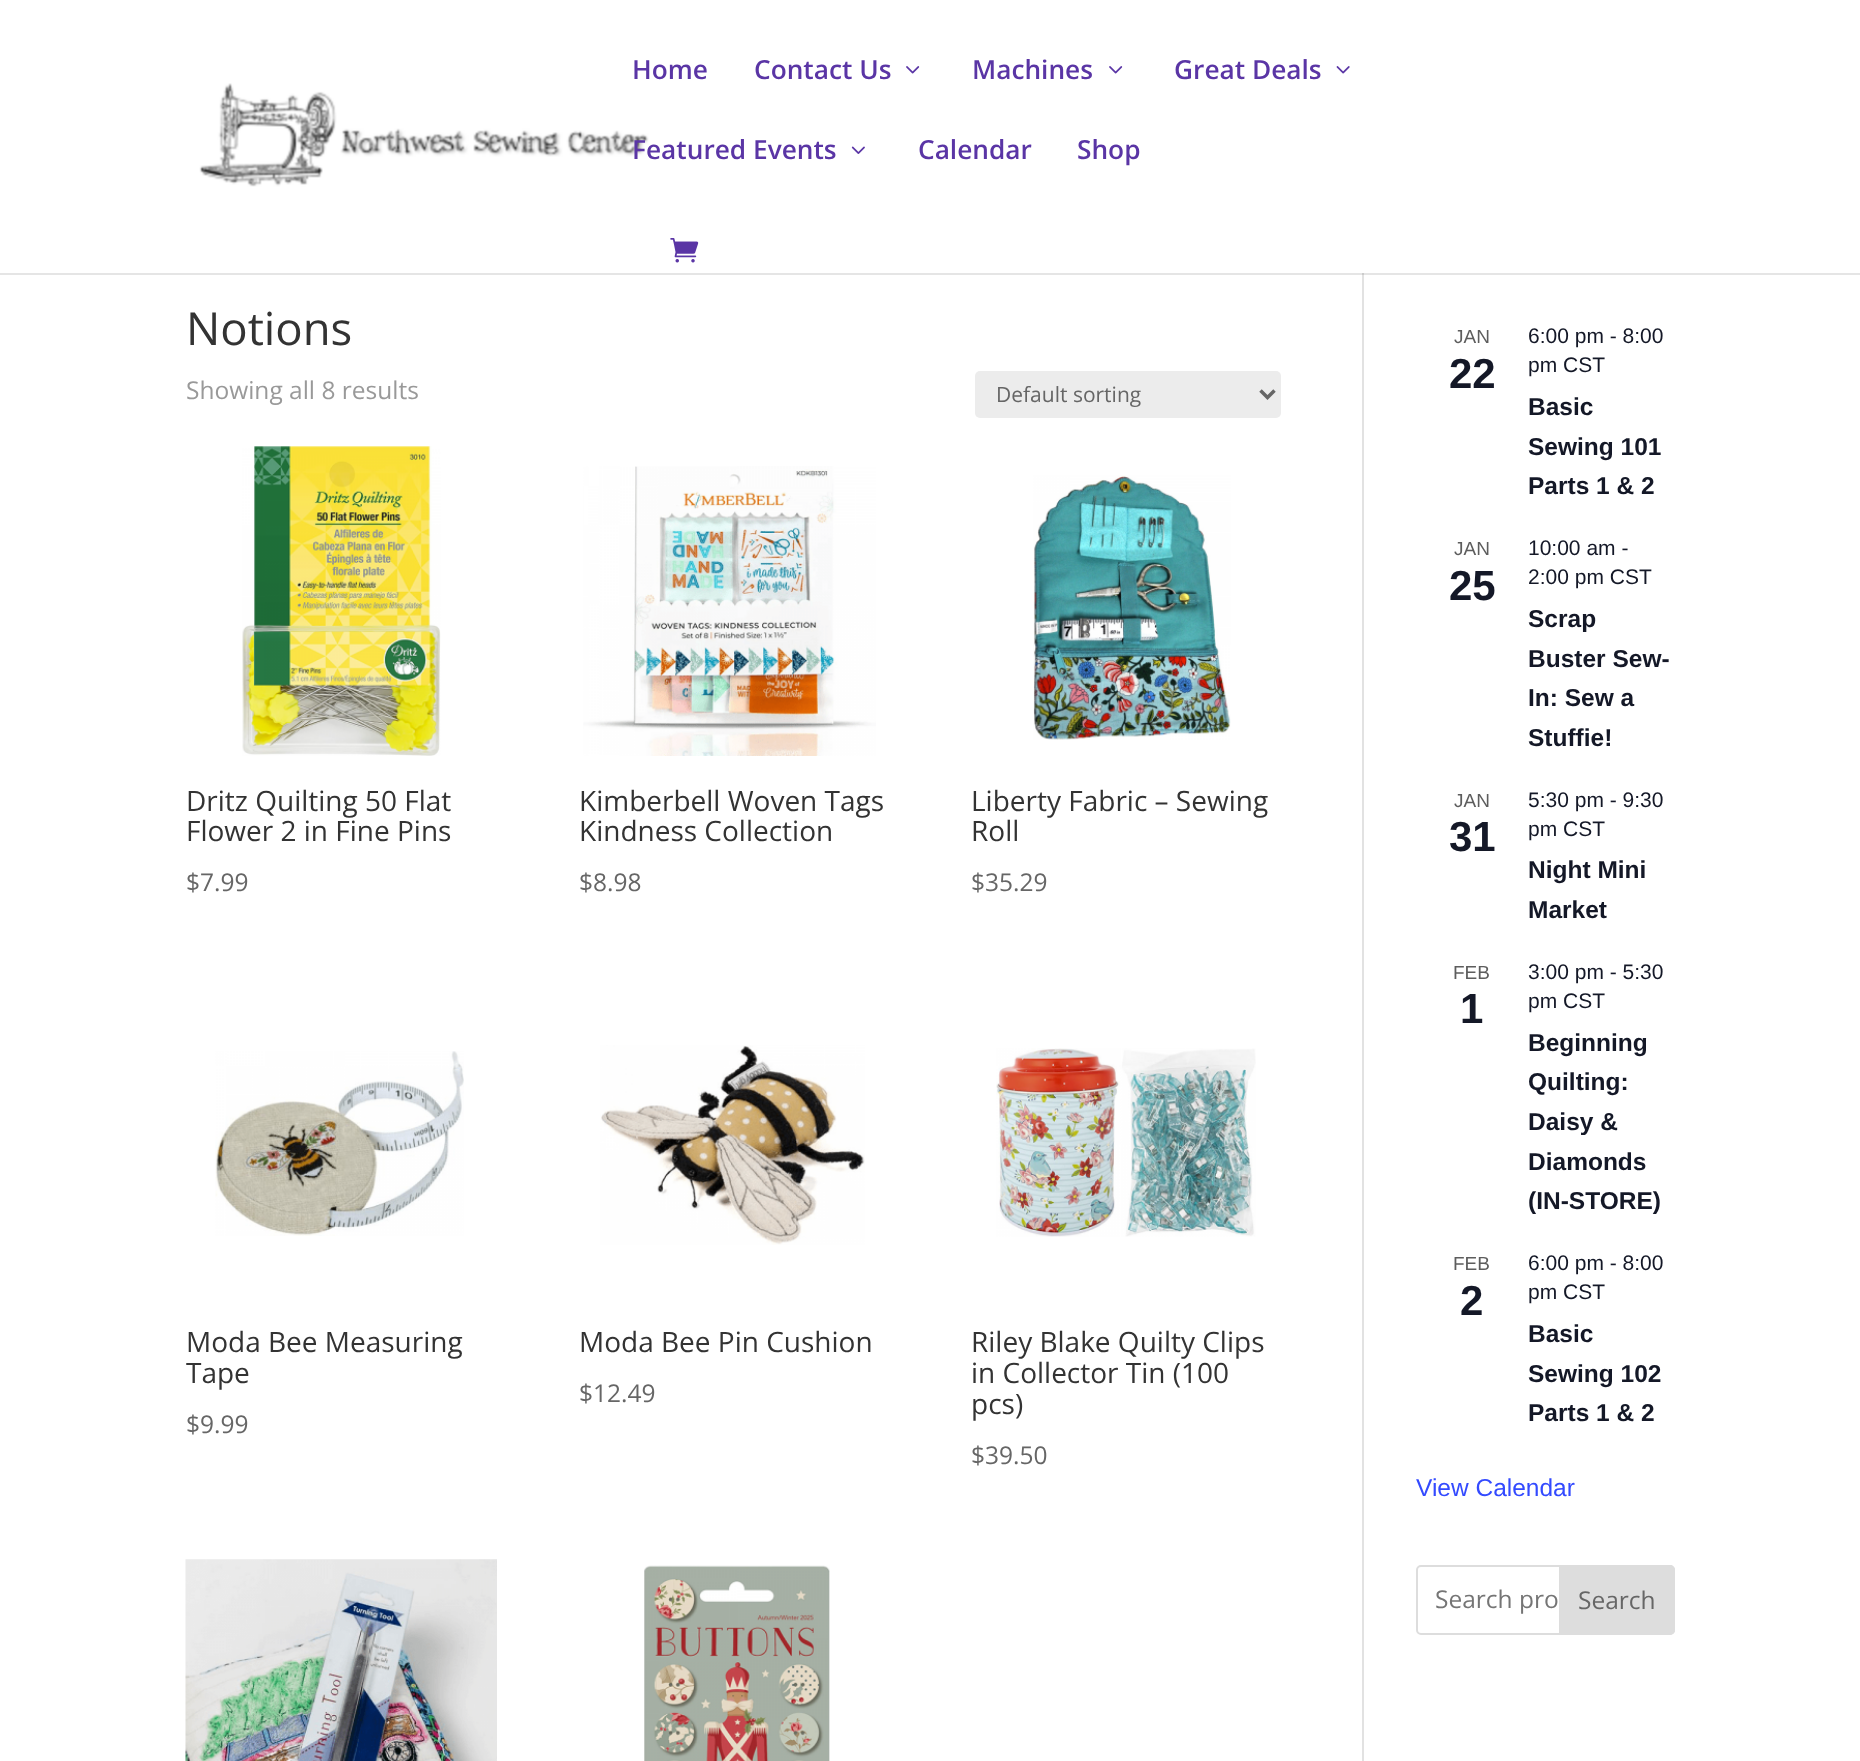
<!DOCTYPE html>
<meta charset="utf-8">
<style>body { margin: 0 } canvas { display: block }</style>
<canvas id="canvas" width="1860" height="1761"></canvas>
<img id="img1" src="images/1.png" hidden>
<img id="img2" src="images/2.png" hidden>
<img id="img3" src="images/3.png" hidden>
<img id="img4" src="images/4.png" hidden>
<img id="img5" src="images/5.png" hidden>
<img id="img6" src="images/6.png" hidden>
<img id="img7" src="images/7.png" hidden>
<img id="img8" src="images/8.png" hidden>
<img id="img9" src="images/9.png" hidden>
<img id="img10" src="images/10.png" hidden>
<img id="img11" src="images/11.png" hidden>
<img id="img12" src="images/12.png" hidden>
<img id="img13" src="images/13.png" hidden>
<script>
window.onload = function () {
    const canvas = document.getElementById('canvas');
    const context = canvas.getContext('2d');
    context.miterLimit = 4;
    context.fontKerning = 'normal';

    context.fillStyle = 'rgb(255, 255, 255)';
    context.fillRect(0, 0, 1860, 1761);
    context.fillStyle = 'rgb(226, 226, 226)';
    context.fillRect(1362, 273, 2, 1488);
    context.fillStyle = 'rgba(0, 0, 0, 0.1)';
    context.fillRect(0, 273, 1860, 2);
    context.drawImage(document.getElementById('img1'), 199, 83, 450, 104);
    context.drawImage(document.getElementById('img2'), 906, 66, 14, 8);
    context.drawImage(document.getElementById('img2'), 1109, 66, 14, 8);
    context.drawImage(document.getElementById('img3'), 1336, 66, 14, 8);
    context.drawImage(document.getElementById('img4'), 851, 146, 14, 8);
    context.drawImage(document.getElementById('img5'), 670, 238, 29, 25);
    context.fillStyle = 'rgb(236, 236, 236)';
    context.beginPath();
    context.roundRect(975, 371, 306, 47, 5);
    context.fill();
    context.beginPath();
    context.moveTo(1260.5, 390.5);
    context.lineTo(1267.5, 397.5);
    context.lineTo(1274.5, 390.5);
    context.strokeStyle = 'rgb(102, 102, 102)';
    context.lineWidth = 3.5;
    context.stroke();
    context.drawImage(document.getElementById('img6'), 242, 446, 199, 310);
    context.drawImage(document.getElementById('img7'), 583, 466, 293, 290);
    context.drawImage(document.getElementById('img8'), 1033, 475, 198, 265);
    context.drawImage(document.getElementById('img9'), 215, 1051, 249, 185);
    context.drawImage(document.getElementById('img10'), 600, 1045, 265, 200);
    context.drawImage(document.getElementById('img11'), 996, 1048, 260, 189);
    context.drawImage(document.getElementById('img12'), 185, 1559, 312, 202);
    context.drawImage(document.getElementById('img13'), 644, 1565, 186, 196);
    context.beginPath();
    context.roundRect(1417, 1566, 257, 68, 4);
    context.strokeStyle = 'rgb(221, 221, 221)';
    context.lineWidth = 2;
    context.stroke();
    context.fillStyle = 'rgb(221, 221, 221)';
    context.beginPath();
    context.roundRect(1560, 1566, 114, 68, [0, 4, 4, 0]);
    context.fill();
    context.stroke();
    context.font = '600 26.25px Open Sans';
    context.fillStyle = 'rgb(90, 53, 165)';
    context.fillText('Home', 632, 79);
    context.fillText('Contact Us', 754, 79);
    context.fillText('Machines', 972, 79);
    context.fillText('Great Deals', 1174, 79);
    context.fillText('Featured Events', 632, 159);
    context.fillText('Calendar', 918, 159);
    context.fillText('Shop', 1077, 159);
    context.font = '45.5px Open Sans';
    context.fillStyle = 'rgb(51, 51, 51)';
    context.fillText('Notions', 186, 345);
    context.font = '24.5px Open Sans';
    context.fillStyle = 'rgb(153, 153, 153)';
    context.fillText('Showing all 8 results', 186, 399);
    context.font = '21px Open Sans';
    context.fillStyle = 'rgb(102, 102, 102)';
    context.fillText('Default sorting', 996, 402);
    context.font = '28px Open Sans';
    context.fillStyle = 'rgb(51, 51, 51)';
    context.fillText('Dritz Quilting 50 Flat', 186, 811);
    context.fillText('Flower 2 in Fine Pins', 186, 841);
    context.font = '24.5px Open Sans';
    context.fillStyle = 'rgb(102, 102, 102)';
    context.fillText('$7.99', 186, 891);
    context.font = '28px Open Sans';
    context.fillStyle = 'rgb(51, 51, 51)';
    context.fillText('Kimberbell Woven Tags', 579, 811);
    context.fillText('Kindness Collection', 579, 841);
    context.font = '24.5px Open Sans';
    context.fillStyle = 'rgb(102, 102, 102)';
    context.fillText('$8.98', 579, 891);
    context.font = '28px Open Sans';
    context.fillStyle = 'rgb(51, 51, 51)';
    context.fillText('Liberty Fabric – Sewing', 971, 811);
    context.fillText('Roll', 971, 841);
    context.font = '24.5px Open Sans';
    context.fillStyle = 'rgb(102, 102, 102)';
    context.fillText('$35.29', 971, 891);
    context.font = '28px Open Sans';
    context.fillStyle = 'rgb(51, 51, 51)';
    context.fillText('Moda Bee Measuring', 186, 1352);
    context.fillText('Tape', 186, 1383);
    context.font = '24.5px Open Sans';
    context.fillStyle = 'rgb(102, 102, 102)';
    context.fillText('$9.99', 186, 1433);
    context.font = '28px Open Sans';
    context.fillStyle = 'rgb(51, 51, 51)';
    context.fillText('Moda Bee Pin Cushion', 579, 1352);
    context.font = '24.5px Open Sans';
    context.fillStyle = 'rgb(102, 102, 102)';
    context.fillText('$12.49', 579, 1402);
    context.font = '28px Open Sans';
    context.fillStyle = 'rgb(51, 51, 51)';
    context.fillText('Riley Blake Quilty Clips', 971, 1352);
    context.fillText('in Collector Tin (100', 971, 1383);
    context.fillText('pcs)', 971, 1414);
    context.font = '24.5px Open Sans';
    context.fillStyle = 'rgb(102, 102, 102)';
    context.fillText('$39.50', 971, 1464);
    context.font = '19px Liberation Sans';
    context.fillStyle = 'rgb(93, 93, 93)';
    context.fillText('JAN', 1454, 343);
    context.font = 'bold 42px Liberation Sans';
    context.fillStyle = 'rgb(20, 24, 39)';
    context.fillText('22', 1449, 388);
    context.font = '21px Liberation Sans';
    context.fillText('6:00 pm - 8:00', 1528, 343);
    context.fillText('pm CST', 1528, 372);
    context.font = 'bold 24.5px Liberation Sans';
    context.fillText('Basic', 1528, 415);
    context.fillText('Sewing 101', 1528, 455);
    context.fillText('Parts 1 & 2', 1528, 494);
    context.font = '19px Liberation Sans';
    context.fillStyle = 'rgb(93, 93, 93)';
    context.fillText('JAN', 1454, 555);
    context.font = 'bold 42px Liberation Sans';
    context.fillStyle = 'rgb(20, 24, 39)';
    context.fillText('25', 1449, 600);
    context.font = '21px Liberation Sans';
    context.fillText('10:00 am -', 1528, 555);
    context.fillText('2:00 pm CST', 1528, 584);
    context.font = 'bold 24.5px Liberation Sans';
    context.fillText('Scrap', 1528, 627);
    context.fillText('Buster Sew-', 1528, 667);
    context.fillText('In: Sew a', 1528, 706);
    context.fillText('Stuffie!', 1528, 746);
    context.font = '19px Liberation Sans';
    context.fillStyle = 'rgb(93, 93, 93)';
    context.fillText('JAN', 1454, 807);
    context.font = 'bold 42px Liberation Sans';
    context.fillStyle = 'rgb(20, 24, 39)';
    context.fillText('31', 1449, 851);
    context.font = '21px Liberation Sans';
    context.fillText('5:30 pm - 9:30', 1528, 807);
    context.fillText('pm CST', 1528, 836);
    context.font = 'bold 24.5px Liberation Sans';
    context.fillText('Night Mini', 1528, 878);
    context.fillText('Market', 1528, 918);
    context.font = '19px Liberation Sans';
    context.fillStyle = 'rgb(93, 93, 93)';
    context.fillText('FEB', 1453, 979);
    context.font = 'bold 42px Liberation Sans';
    context.fillStyle = 'rgb(20, 24, 39)';
    context.fillText('1', 1460, 1023);
    context.font = '21px Liberation Sans';
    context.fillText('3:00 pm - 5:30', 1528, 979);
    context.fillText('pm CST', 1528, 1008);
    context.font = 'bold 24.5px Liberation Sans';
    context.fillText('Beginning', 1528, 1051);
    context.fillText('Quilting:', 1528, 1090);
    context.fillText('Daisy &', 1528, 1130);
    context.fillText('Diamonds', 1528, 1170);
    context.fillText('(IN-STORE)', 1528, 1209);
    context.font = '19px Liberation Sans';
    context.fillStyle = 'rgb(93, 93, 93)';
    context.fillText('FEB', 1453, 1270);
    context.font = 'bold 42px Liberation Sans';
    context.fillStyle = 'rgb(20, 24, 39)';
    context.fillText('2', 1460, 1315);
    context.font = '21px Liberation Sans';
    context.fillText('6:00 pm - 8:00', 1528, 1270);
    context.fillText('pm CST', 1528, 1299);
    context.font = 'bold 24.5px Liberation Sans';
    context.fillText('Basic', 1528, 1342);
    context.fillText('Sewing 102', 1528, 1382);
    context.fillText('Parts 1 & 2', 1528, 1421);
    context.font = '24.5px Liberation Sans';
    context.fillStyle = 'rgb(51, 74, 255)';
    context.fillText('View Calendar', 1416, 1496);
    context.font = '24.5px Open Sans';
    context.fillStyle = 'rgb(117, 117, 117)';
    context.fillText('Search pro', 1435, 1608);
    context.fillStyle = 'rgb(102, 102, 102)';
    context.fillText('Search', 1578, 1609);
};
</script>
